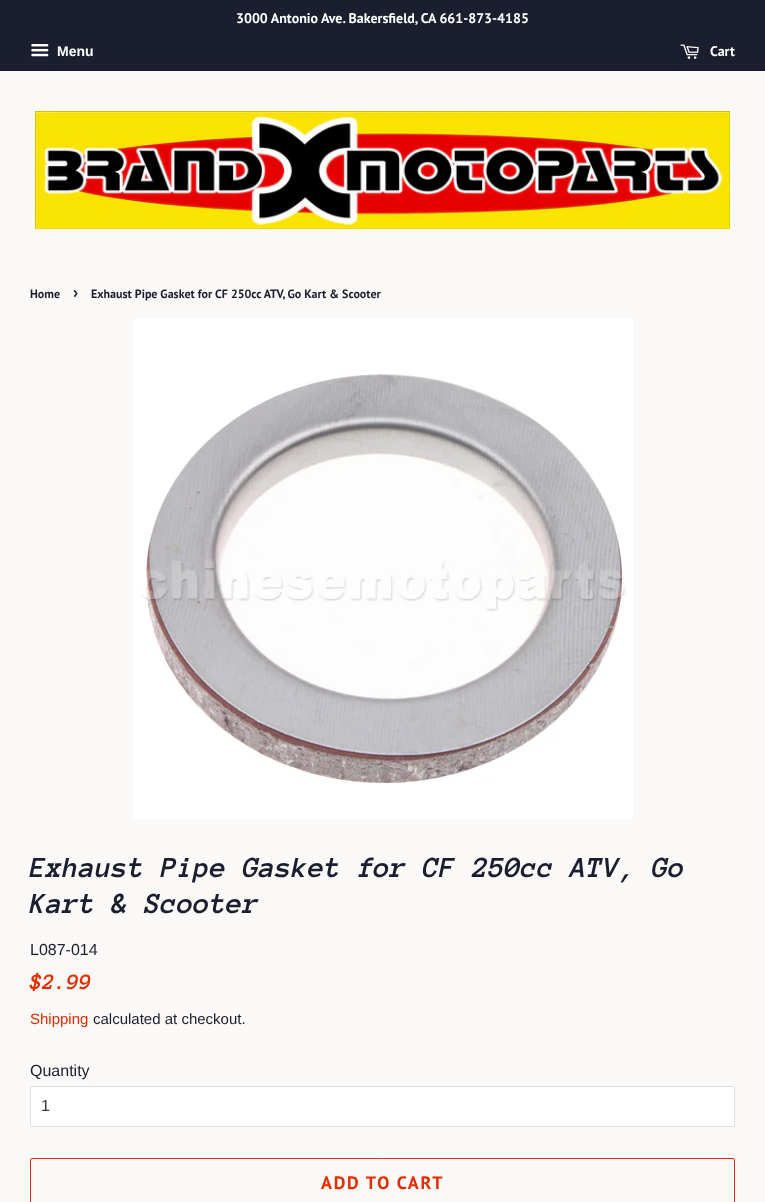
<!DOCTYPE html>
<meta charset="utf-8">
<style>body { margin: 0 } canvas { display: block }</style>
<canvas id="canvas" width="765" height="1202"></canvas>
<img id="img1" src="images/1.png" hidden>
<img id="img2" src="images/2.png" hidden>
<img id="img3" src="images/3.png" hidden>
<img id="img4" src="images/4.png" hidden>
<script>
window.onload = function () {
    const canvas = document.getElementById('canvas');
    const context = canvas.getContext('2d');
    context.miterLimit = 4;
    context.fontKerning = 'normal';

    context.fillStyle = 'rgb(250, 249, 247)';
    context.fillRect(0, 0, 765, 1202);
    context.fillStyle = 'rgb(27, 30, 47)';
    context.fillRect(0, 0, 765, 71);
    context.drawImage(document.getElementById('img1'), 31, 44, 18, 13);
    context.drawImage(document.getElementById('img2'), 680, 44, 19, 15);
    context.drawImage(document.getElementById('img3'), 35, 111, 695, 118);
    context.drawImage(document.getElementById('img4'), 133, 319, 500, 500);
    context.fillStyle = 'rgb(255, 255, 255)';
    context.beginPath();
    context.roundRect(30.5, 1086.5, 704, 40, 1.5);
    context.fill();
    context.strokeStyle = 'rgb(221, 221, 224)';
    context.stroke();
    context.beginPath();
    context.roundRect(30.5, 1158.5, 704, 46, 1.5);
    context.strokeStyle = 'rgb(228, 44, 0)';
    context.stroke();
    context.font = 'bold 14px PT Sans';
    context.fillText('3000 Antonio Ave. Bakersfield, CA 661-873-4185', 236, 23);
    context.font = 'bold 14px Liberation Sans';
    context.fillText('Menu', 57, 56);
    context.font = 'bold 14px PT Sans';
    context.fillText('Cart', 710, 56);
    context.font = 'bold 12px PT Sans';
    context.fillStyle = 'rgb(27, 30, 47)';
    context.fillText('Home', 30, 298);
    context.font = 'bold 17px PT Sans';
    context.fillText('›', 73, 298);
    context.font = 'bold 12px PT Sans';
    context.fillText('Exhaust Pipe Gasket for CF 250cc ATV, Go Kart & Scooter', 91, 298);
    context.font = 'italic bold 30px Anonymous Pro';
    context.fillText('Exhaust Pipe Gasket for CF 250cc ATV, Go', 30, 877);
    context.fillText('Kart & Scooter', 30, 913);
    context.font = '16px Liberation Sans';
    context.fillText('L087-014', 30, 955);
    context.font = 'italic bold 22.5px Anonymous Pro';
    context.fillStyle = 'rgb(228, 44, 0)';
    context.fillText('$2.99', 30, 989);
    context.font = '15px Liberation Sans';
    context.fillText('Shipping', 30, 1024);
    context.fillStyle = 'rgb(27, 30, 47)';
    context.fillText('calculated at checkout.', 93, 1024);
    context.font = '16px Liberation Sans';
    context.fillText('Quantity', 30, 1076);
    context.fillStyle = 'rgb(51, 51, 51)';
    context.fillText('1', 41, 1111);
    context.letterSpacing = '1.75px';
    context.font = 'bold 18px PT Sans';
    context.fillStyle = 'rgb(228, 44, 0)';
    context.fillText('ADD TO CART', 321, 1189);
};
</script>
